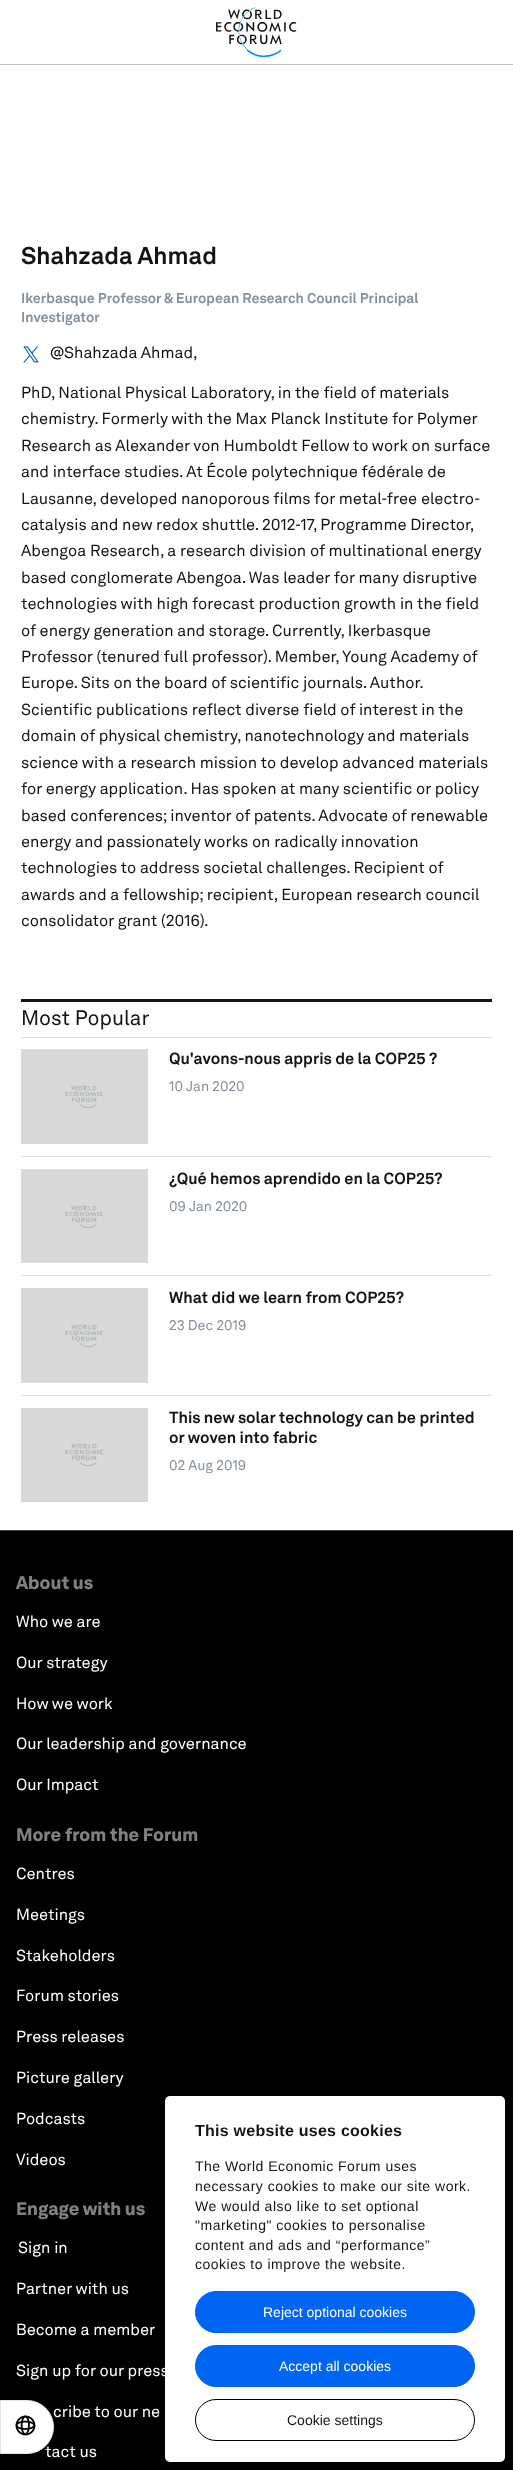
<!DOCTYPE html>
<meta charset="utf-8">
<style>body { margin: 0 } canvas { display: block }</style>
<canvas id="canvas" width="513" height="2470"></canvas>
<img id="img1" src="images/1.png" hidden>
<img id="img2" src="images/2.png" hidden>
<img id="img3" src="images/3.png" hidden>
<img id="img4" src="images/4.png" hidden>
<img id="img5" src="images/5.png" hidden>
<script>
window.onload = function () {
    const canvas = document.getElementById('canvas');
    const context = canvas.getContext('2d');
    context.miterLimit = 4;
    context.fontKerning = 'normal';

    context.fillStyle = 'rgb(255, 255, 255)';
    context.fillRect(0, 0, 513, 2470);
    context.fillStyle = 'rgb(191, 191, 191)';
    context.fillRect(0, 64, 513, 1);
    context.drawImage(document.getElementById('img1'), 216, 7, 81, 50);
    context.drawImage(document.getElementById('img2'), 23, 346, 16, 17);
    context.fillStyle = 'rgb(20, 20, 20)';
    context.fillRect(21, 999, 471, 3);
    context.fillStyle = 'rgb(213, 224, 232)';
    context.fillRect(21, 1037, 471, 1);
    context.fillRect(21, 1156, 471, 1);
    context.fillStyle = 'rgb(216, 216, 216)';
    context.fillRect(21, 1049, 127, 95);
    context.drawImage(document.getElementById('img3'), 65, 1084, 38, 25);
    context.fillStyle = 'rgb(213, 224, 232)';
    context.fillRect(21, 1275, 471, 1);
    context.fillStyle = 'rgb(216, 216, 216)';
    context.fillRect(21, 1169, 127, 94);
    context.drawImage(document.getElementById('img4'), 65, 1204, 38, 25);
    context.fillStyle = 'rgb(213, 224, 232)';
    context.fillRect(21, 1395, 471, 1);
    context.fillStyle = 'rgb(216, 216, 216)';
    context.fillRect(21, 1288, 127, 95);
    context.drawImage(document.getElementById('img3'), 65, 1323, 38, 25);
    context.fillRect(21, 1408, 127, 94);
    context.drawImage(document.getElementById('img3'), 65, 1442, 38, 25);
    context.fillStyle = 'rgb(0, 0, 0)';
    context.fillRect(0, 1531, 513, 939);
    context.fillStyle = 'rgb(64, 64, 64)';
    context.fillRect(0, 1530, 513, 1);
    context.fillStyle = 'rgb(255, 255, 255)';
    context.beginPath();
    context.roundRect(0.5, 2400.5, 53, 53, [0, 26.5, 26.5, 0]);
    context.fill();
    context.strokeStyle = 'rgb(230, 230, 230)';
    context.stroke();
    context.drawImage(document.getElementById('img5'), 15, 2415, 21, 21);
    context.fillStyle = 'rgba(0, 0, 0, 0.3)';
    context.filter = 'blur(34px)';
    context.beginPath();
    context.roundRect(165, 2128, 340, 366, 5);
    context.fill();
    context.filter = 'none';
    context.fillStyle = 'rgb(255, 255, 255)';
    context.beginPath();
    context.roundRect(165, 2096, 340, 366, 5);
    context.fill();
    context.fillStyle = 'rgb(0, 101, 242)';
    context.beginPath();
    context.roundRect(195.5, 2291.5, 279, 41, 20.5);
    context.fill();
    context.strokeStyle = 'rgb(0, 101, 242)';
    context.stroke();
    context.beginPath();
    context.roundRect(195.5, 2345.5, 279, 41, 20.5);
    context.fill();
    context.stroke();
    context.beginPath();
    context.roundRect(195.5, 2399.5, 279, 41, 20.5);
    context.strokeStyle = 'rgb(0, 0, 0)';
    context.stroke();
    context.font = 'bold 24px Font';
    context.fillStyle = 'rgb(20, 20, 20)';
    context.fillText('Shahzada Ahmad', 21, 264);
    context.font = 'bold 14px Font';
    context.fillStyle = 'rgb(132, 145, 156)';
    context.fillText('Ikerbasque Professor & European Research Council Principal', 21, 303);
    context.fillText('Investigator', 21, 322);
    context.font = '16px Font';
    context.fillStyle = 'rgb(20, 20, 20)';
    context.fillText('@Shahzada Ahmad,', 50, 358);
    context.fillText('PhD, National Physical Laboratory, in the field of materials', 21, 398);
    context.fillText('chemistry. Formerly with the Max Planck Institute for Polymer', 21, 424);
    context.fillText('Research as Alexander von Humboldt Fellow to work on surface', 21, 451);
    context.fillText('and interface studies. At École polytechnique fédérale de', 21, 477);
    context.fillText('Lausanne, developed nanoporous films for metal-free electro-', 21, 504);
    context.fillText('catalysis and new redox shuttle. 2012-17, Programme Director,', 21, 530);
    context.fillText('Abengoa Research, a research division of multinational energy', 21, 556);
    context.fillText('based conglomerate Abengoa. Was leader for many disruptive', 21, 583);
    context.fillText('technologies with high forecast production growth in the field', 21, 609);
    context.fillText('of energy generation and storage. Currently, Ikerbasque', 21, 636);
    context.fillText('Professor (tenured full professor). Member, Young Academy of', 21, 662);
    context.fillText('Europe. Sits on the board of scientific journals. Author.', 21, 688);
    context.fillText('Scientific publications reflect diverse field of interest in the', 21, 715);
    context.fillText('domain of physical chemistry, nanotechnology and materials', 21, 741);
    context.fillText('science with a research mission to develop advanced materials', 21, 768);
    context.fillText('for energy application. Has spoken at many scientific or policy', 21, 794);
    context.fillText('based conferences; inventor of patents. Advocate of renewable', 21, 821);
    context.fillText('energy and passionately works on radically innovation', 21, 847);
    context.fillText('technologies to address societal challenges. Recipient of', 21, 873);
    context.fillText('awards and a fellowship; recipient, European research council', 21, 900);
    context.fillText('consolidator grant (2016).', 21, 926);
    context.font = '20.75px Font';
    context.fillText('Most Popular', 21, 1025);
    context.font = 'bold 16px Font';
    context.fillText('Qu\'avons-nous appris de la COP25 ?', 169, 1064);
    context.font = '14px Font';
    context.fillStyle = 'rgb(132, 145, 156)';
    context.fillText('10 Jan 2020', 169, 1091);
    context.font = 'bold 16px Font';
    context.fillStyle = 'rgb(20, 20, 20)';
    context.fillText('¿Qué hemos aprendido en la COP25?', 169, 1184);
    context.font = '14px Font';
    context.fillStyle = 'rgb(132, 145, 156)';
    context.fillText('09 Jan 2020', 169, 1211);
    context.font = 'bold 16px Font';
    context.fillStyle = 'rgb(20, 20, 20)';
    context.fillText('What did we learn from COP25?', 169, 1303);
    context.font = '14px Font';
    context.fillStyle = 'rgb(132, 145, 156)';
    context.fillText('23 Dec 2019', 169, 1330);
    context.font = 'bold 16px Font';
    context.fillStyle = 'rgb(20, 20, 20)';
    context.fillText('This new solar technology can be printed', 169, 1423);
    context.fillText('or woven into fabric', 169, 1443);
    context.font = '14px Font';
    context.fillStyle = 'rgb(132, 145, 156)';
    context.fillText('02 Aug 2019', 169, 1470);
    context.font = '900 18px Font';
    context.fillStyle = 'rgb(128, 128, 128)';
    context.fillText('About us', 16, 1589);
    context.font = '16px Font';
    context.fillStyle = 'rgb(255, 255, 255)';
    context.fillText('Who we are', 16, 1627);
    context.fillText('Our strategy', 16, 1668);
    context.fillText('How we work', 16, 1709);
    context.fillText('Our leadership and governance', 16, 1749);
    context.fillText('Our Impact', 16, 1790);
    context.font = '900 18px Font';
    context.fillStyle = 'rgb(128, 128, 128)';
    context.fillText('More from the Forum', 16, 1841);
    context.font = '16px Font';
    context.fillStyle = 'rgb(255, 255, 255)';
    context.fillText('Centres', 16, 1879);
    context.fillText('Meetings', 16, 1920);
    context.fillText('Stakeholders', 16, 1961);
    context.fillText('Forum stories', 16, 2001);
    context.fillText('Press releases', 16, 2042);
    context.fillText('Picture gallery', 16, 2083);
    context.fillText('Podcasts', 16, 2124);
    context.fillText('Videos', 16, 2165);
    context.font = '900 18px Font';
    context.fillStyle = 'rgb(128, 128, 128)';
    context.fillText('Engage with us', 16, 2215);
    context.font = '16px Font';
    context.fillStyle = 'rgb(255, 255, 255)';
    context.fillText('Sign in', 18, 2253);
    context.fillText('Partner with us', 16, 2294);
    context.fillText('Become a member', 16, 2335);
    context.fillText('Sign up for our press', 16, 2376);
    context.fillText('cribe to our ne', 53, 2417);
    context.fillText('tact us', 45, 2457);
    context.letterSpacing = '0.25px';
    context.font = 'bold 16px Liberation Sans';
    context.fillStyle = 'rgb(20, 20, 20)';
    context.fillText('This website uses cookies', 195, 2136);
    context.letterSpacing = '0.5px';
    context.font = '14px Liberation Sans';
    context.fillText('The World Economic Forum uses', 195, 2171);
    context.fillText('necessary cookies to make our site work.', 195, 2191);
    context.fillText('We would also like to set optional', 195, 2211);
    context.fillText('"marketing" cookies to personalise', 195, 2230);
    context.fillText('content and ads and “performance”', 195, 2250);
    context.fillText('cookies to improve the website.', 195, 2269);
    context.letterSpacing = '0px';
    context.fillStyle = 'rgb(255, 255, 255)';
    context.fillText('Reject optional cookies', 263, 2317);
    context.fillText('Accept all cookies', 279, 2371);
    context.fillStyle = 'rgb(20, 20, 20)';
    context.fillText('Cookie settings', 287, 2425);
};
</script>
